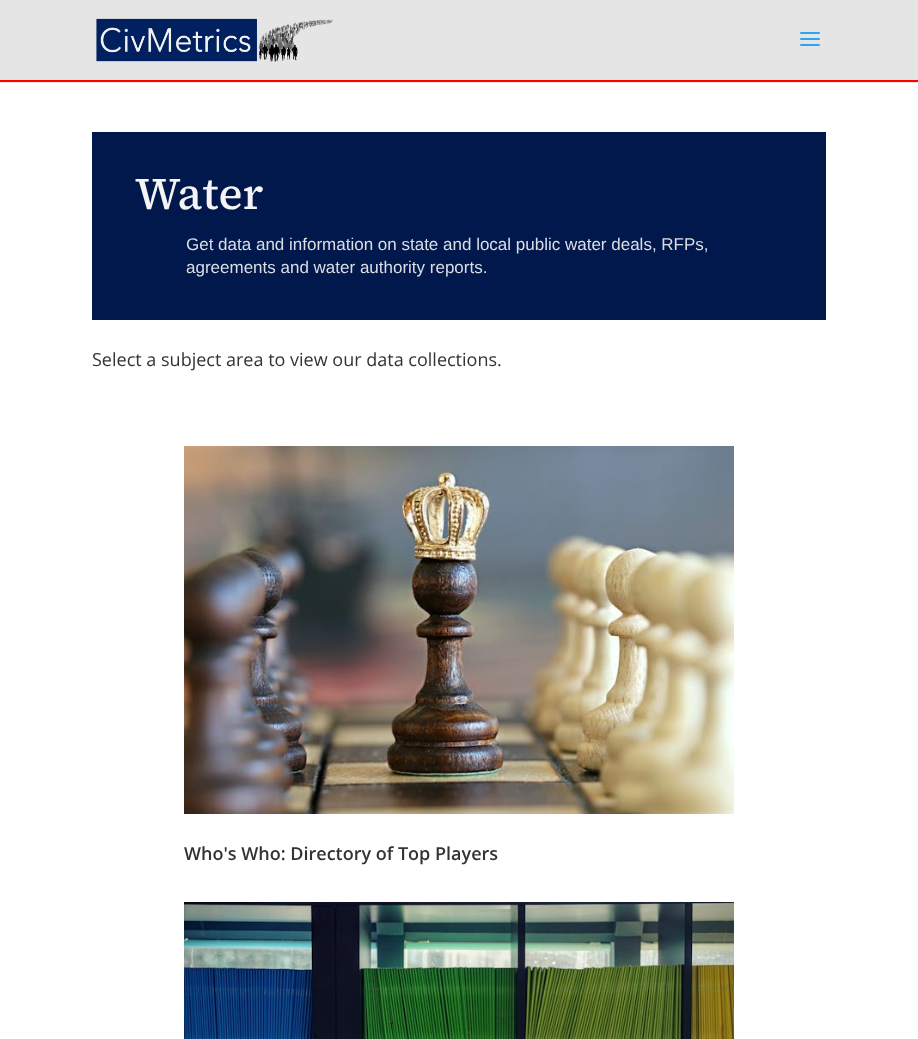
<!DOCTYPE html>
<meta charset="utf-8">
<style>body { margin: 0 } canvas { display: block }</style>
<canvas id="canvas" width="918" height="1039"></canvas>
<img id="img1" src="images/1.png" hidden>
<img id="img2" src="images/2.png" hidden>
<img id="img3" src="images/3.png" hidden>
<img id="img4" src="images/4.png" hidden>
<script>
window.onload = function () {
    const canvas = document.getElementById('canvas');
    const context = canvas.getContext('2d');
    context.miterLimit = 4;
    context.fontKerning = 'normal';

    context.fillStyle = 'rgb(255, 255, 255)';
    context.fillRect(0, 0, 918, 1039);
    context.fillStyle = 'rgb(230, 230, 230)';
    context.fillRect(0, 82, 918, 1);
    context.fillStyle = 'rgb(229, 229, 229)';
    context.fillRect(0, 0, 918, 80);
    context.fillStyle = 'rgb(255, 0, 0)';
    context.fillRect(0, 80, 918, 2);
    context.drawImage(document.getElementById('img1'), 96, 18, 237, 44);
    context.drawImage(document.getElementById('img2'), 800, 32, 20, 14);
    context.fillStyle = 'rgb(0, 24, 76)';
    context.fillRect(92, 132, 734, 188);
    context.drawImage(document.getElementById('img3'), 184, 446, 550, 368);
    context.drawImage(document.getElementById('img4'), 184, 902, 550, 137);
    context.font = '500 45px "Source Serif 4"';
    context.fillStyle = 'rgb(244, 244, 244)';
    context.fillText('Water', 135, 209);
    context.font = '17px Liberation Sans';
    context.fillStyle = 'rgb(220, 222, 227)';
    context.fillText('Get data and information on state and local public water deals, RFPs,', 186, 250);
    context.fillText('agreements and water authority reports.', 186, 273);
    context.font = '18px Open Sans';
    context.fillStyle = 'rgb(51, 51, 51)';
    context.fillText('Select a subject area to view our data collections.', 92, 366);
    context.font = '600 18px Open Sans';
    context.fillText('Who\'s Who: Directory of Top Players', 184, 860);
};
</script>
